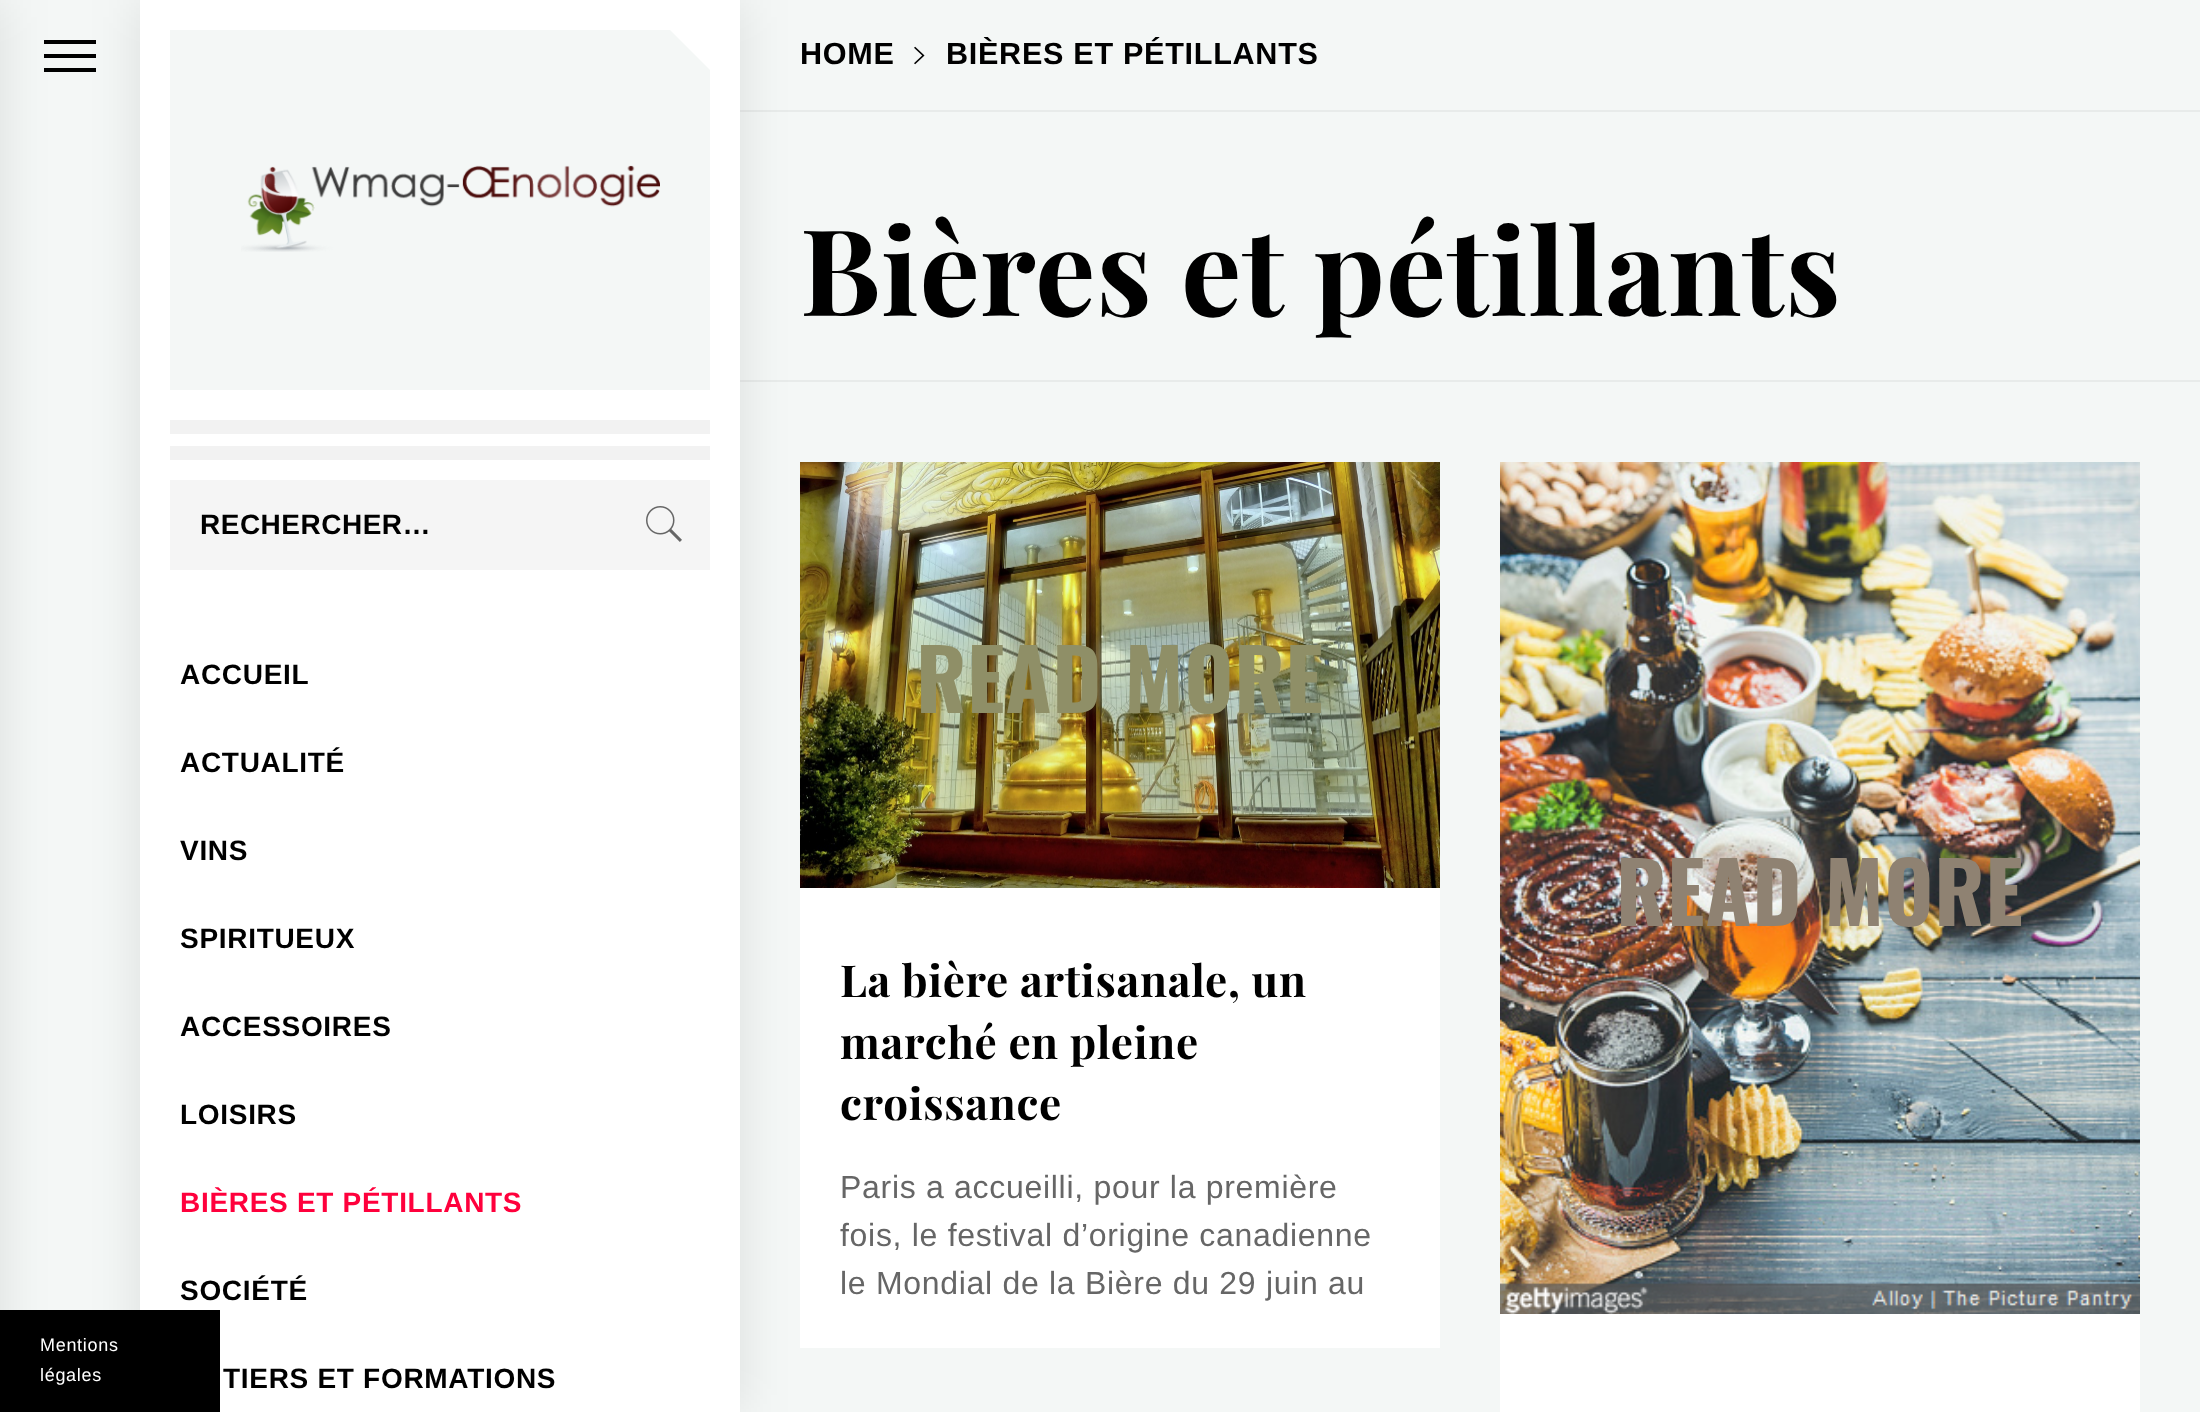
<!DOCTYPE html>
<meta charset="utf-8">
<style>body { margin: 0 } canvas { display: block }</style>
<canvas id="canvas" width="2200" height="1412"></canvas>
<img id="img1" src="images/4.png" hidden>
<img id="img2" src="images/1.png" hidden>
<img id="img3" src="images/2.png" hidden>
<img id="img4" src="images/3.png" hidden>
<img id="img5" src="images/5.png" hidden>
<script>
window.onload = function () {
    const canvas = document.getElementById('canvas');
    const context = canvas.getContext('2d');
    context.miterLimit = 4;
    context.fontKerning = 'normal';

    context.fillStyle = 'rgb(244, 247, 246)';
    context.fillRect(0, 0, 2200, 1412);
    context.fillStyle = 'rgb(0, 0, 0)';
    context.fillRect(44, 40, 52, 4);
    context.fillRect(44, 54, 52, 4);
    context.fillRect(44, 68, 52, 4);
    context.fillStyle = 'rgb(232, 235, 234)';
    context.fillRect(740, 380, 1460, 2);
    context.fillRect(740, 110, 1460, 2);
    context.fillStyle = 'rgb(255, 255, 255)';
    context.fillRect(800, 888, 640, 460);
    context.drawImage(document.getElementById('img1'), 800, 462, 640, 426);
    context.fillStyle = 'rgba(0, 0, 0, 0.1)';
    context.filter = 'blur(25px)';
    context.beginPath();
    context.rect(140, 0, 600, 1412);
    context.fill();
    context.filter = 'none';
    context.fillStyle = 'rgb(255, 255, 255)';
    context.fillRect(140, 0, 600, 1412);
    context.fillStyle = 'rgb(0, 0, 0)';
    context.fillRect(0, 1310, 220, 102);
    context.fillStyle = 'rgba(0, 0, 0, 0.1)';
    context.filter = 'blur(25px)';
    context.beginPath();
    context.rect(-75, 0, 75, 1412);
    context.fill();
    context.filter = 'none';
    context.fillStyle = 'rgb(244, 247, 246)';
    context.beginPath();
    context.moveTo(170, 30);
    context.lineTo(170, 390);
    context.lineTo(710, 390);
    context.lineTo(710, 70);
    context.lineTo(670, 30);
    context.closePath();
    context.fill();
    context.drawImage(document.getElementById('img2'), 241, 165, 419, 87);
    context.fillStyle = 'rgb(242, 242, 242)';
    context.fillRect(170, 420, 540, 14);
    context.fillRect(170, 446, 540, 14);
    context.fillStyle = 'rgb(245, 245, 245)';
    context.fillRect(170, 480, 540, 90);
    context.drawImage(document.getElementById('img3'), 646, 506, 36, 36);
    context.drawImage(document.getElementById('img4'), 914, 46, 11, 19);
    context.fillStyle = 'rgb(255, 255, 255)';
    context.fillRect(1500, 1314, 640, 98);
    context.drawImage(document.getElementById('img5'), 1500, 462, 640, 852);
    context.letterSpacing = '0.7px';
    context.font = '18px Liberation Sans';
    context.fillText('Mentions', 40, 1351);
    context.fillText('légales', 40, 1381);
    context.letterSpacing = '0.5px';
    context.font = 'bold 28px Liberation Sans';
    context.fillStyle = 'rgb(0, 0, 0)';
    context.fillText('RECHERCHER…', 200, 534);
    context.letterSpacing = '0.7px';
    context.fillText('ACCUEIL', 180, 684);
    context.fillText('ACTUALITÉ', 180, 772);
    context.fillText('VINS', 180, 860);
    context.fillText('SPIRITUEUX', 180, 948);
    context.fillText('ACCESSOIRES', 180, 1036);
    context.fillText('LOISIRS', 180, 1124);
    context.fillStyle = 'rgb(255, 0, 60)';
    context.fillText('BIÈRES ET PÉTILLANTS', 180, 1212);
    context.fillStyle = 'rgb(0, 0, 0)';
    context.fillText('SOCIÉTÉ', 180, 1300);
    context.fillText('TIERS ET FORMATIONS', 223, 1388);
    context.font = 'bold 30.6px Liberation Sans';
    context.fillText('HOME', 800, 64);
    context.fillText('BIÈRES ET PÉTILLANTS', 946, 64);
    context.font = 'bold 120px Playfair Display';
    context.fillText('Bières et pétillants', 800, 316);
    context.font = 'bold 84px Oswald';
    context.fillStyle = 'rgb(143, 143, 103)';
    context.fillText('READ MORE', 916, 713);
    context.font = 'bold 44px Playfair Display';
    context.fillStyle = 'rgb(0, 0, 0)';
    context.fillText('La bière artisanale, un', 840, 997);
    context.fillText('marché en pleine', 840, 1059);
    context.fillText('croissance', 840, 1120);
    context.font = '32px Liberation Sans';
    context.fillStyle = 'rgb(102, 102, 102)';
    context.fillText('Paris a accueilli, pour la première', 840, 1198);
    context.fillText('fois, le festival d’origine canadienne', 840, 1246);
    context.fillText('le Mondial de la Bière du 29 juin au', 840, 1294);
    context.font = 'bold 84px Oswald';
    context.fillStyle = 'rgb(143, 130, 114)';
    context.fillText('READ MORE', 1616, 926);
};
</script>
